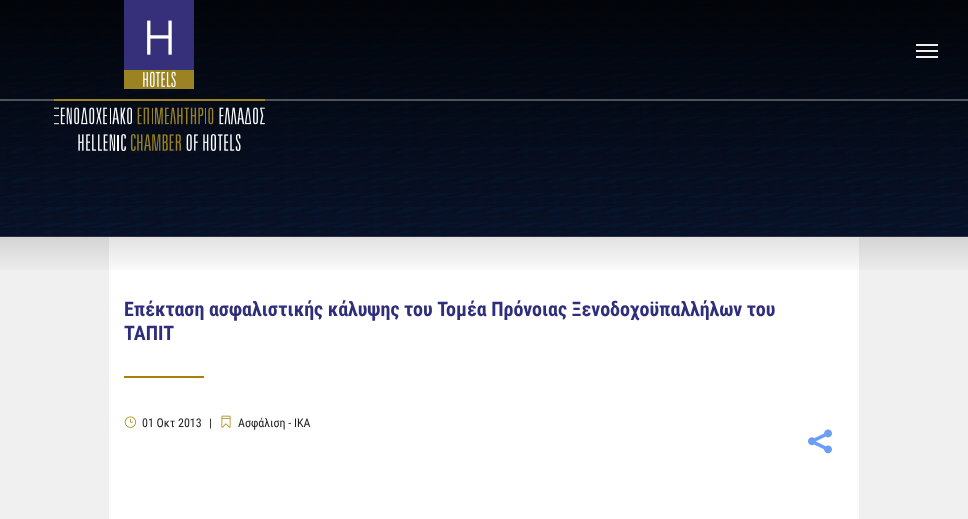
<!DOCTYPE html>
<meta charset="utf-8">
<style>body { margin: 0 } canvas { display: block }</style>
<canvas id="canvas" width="968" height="519"></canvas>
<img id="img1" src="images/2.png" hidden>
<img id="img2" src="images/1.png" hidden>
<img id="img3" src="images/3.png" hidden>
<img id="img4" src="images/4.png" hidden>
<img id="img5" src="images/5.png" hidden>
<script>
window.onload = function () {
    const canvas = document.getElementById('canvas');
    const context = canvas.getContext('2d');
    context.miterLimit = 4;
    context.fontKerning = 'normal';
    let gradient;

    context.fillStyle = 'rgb(240, 240, 240)';
    context.fillRect(0, 0, 968, 519);
    context.drawImage(document.getElementById('img1'), 0, 0, 968, 237);
    context.fillStyle = 'rgb(255, 255, 255)';
    context.fillRect(109, 237, 750, 282);
    gradient = context.createLinearGradient(484, 0, 484, 277);
    gradient.addColorStop(0, 'rgba(0, 0, 0, 0.8)');
    gradient.addColorStop(1, 'rgba(0, 0, 0, 0)');
    context.fillStyle = gradient;
    context.fillRect(0, 0, 968, 270);
    context.fillStyle = 'rgba(255, 255, 255, 0.3)';
    context.fillRect(0, 99, 968, 2);
    context.drawImage(document.getElementById('img2'), 54, 0, 211, 151);
    context.fillStyle = 'rgb(238, 238, 238)';
    context.fillRect(916, 44, 22, 2);
    context.fillRect(916, 50, 22, 2);
    context.fillRect(916, 56, 22, 2);
    context.fillStyle = 'rgb(167, 129, 3)';
    context.fillRect(124, 376, 80, 2);
    context.drawImage(document.getElementById('img3'), 124, 416, 12, 12);
    context.drawImage(document.getElementById('img4'), 221, 415, 10, 13);
    context.drawImage(document.getElementById('img5'), 808, 429, 24, 25);
    context.font = 'bold 20px Roboto Condensed';
    context.fillStyle = 'rgb(47, 46, 125)';
    context.fillText('Επέκταση ασφαλιστικής κάλυψης του Τομέα Πρόνοιας Ξενοδοχοϋπαλλήλων του', 124, 316);
    context.fillText('ΤΑΠΙΤ', 124, 340);
    context.font = '12px Roboto Condensed';
    context.fillStyle = 'rgb(33, 33, 34)';
    context.fillText('01 Οκτ 2013', 142, 427);
    context.fillText('|', 209, 427);
    context.fillText('Ασφάλιση - ΙΚΑ', 238, 427);
};
</script>
